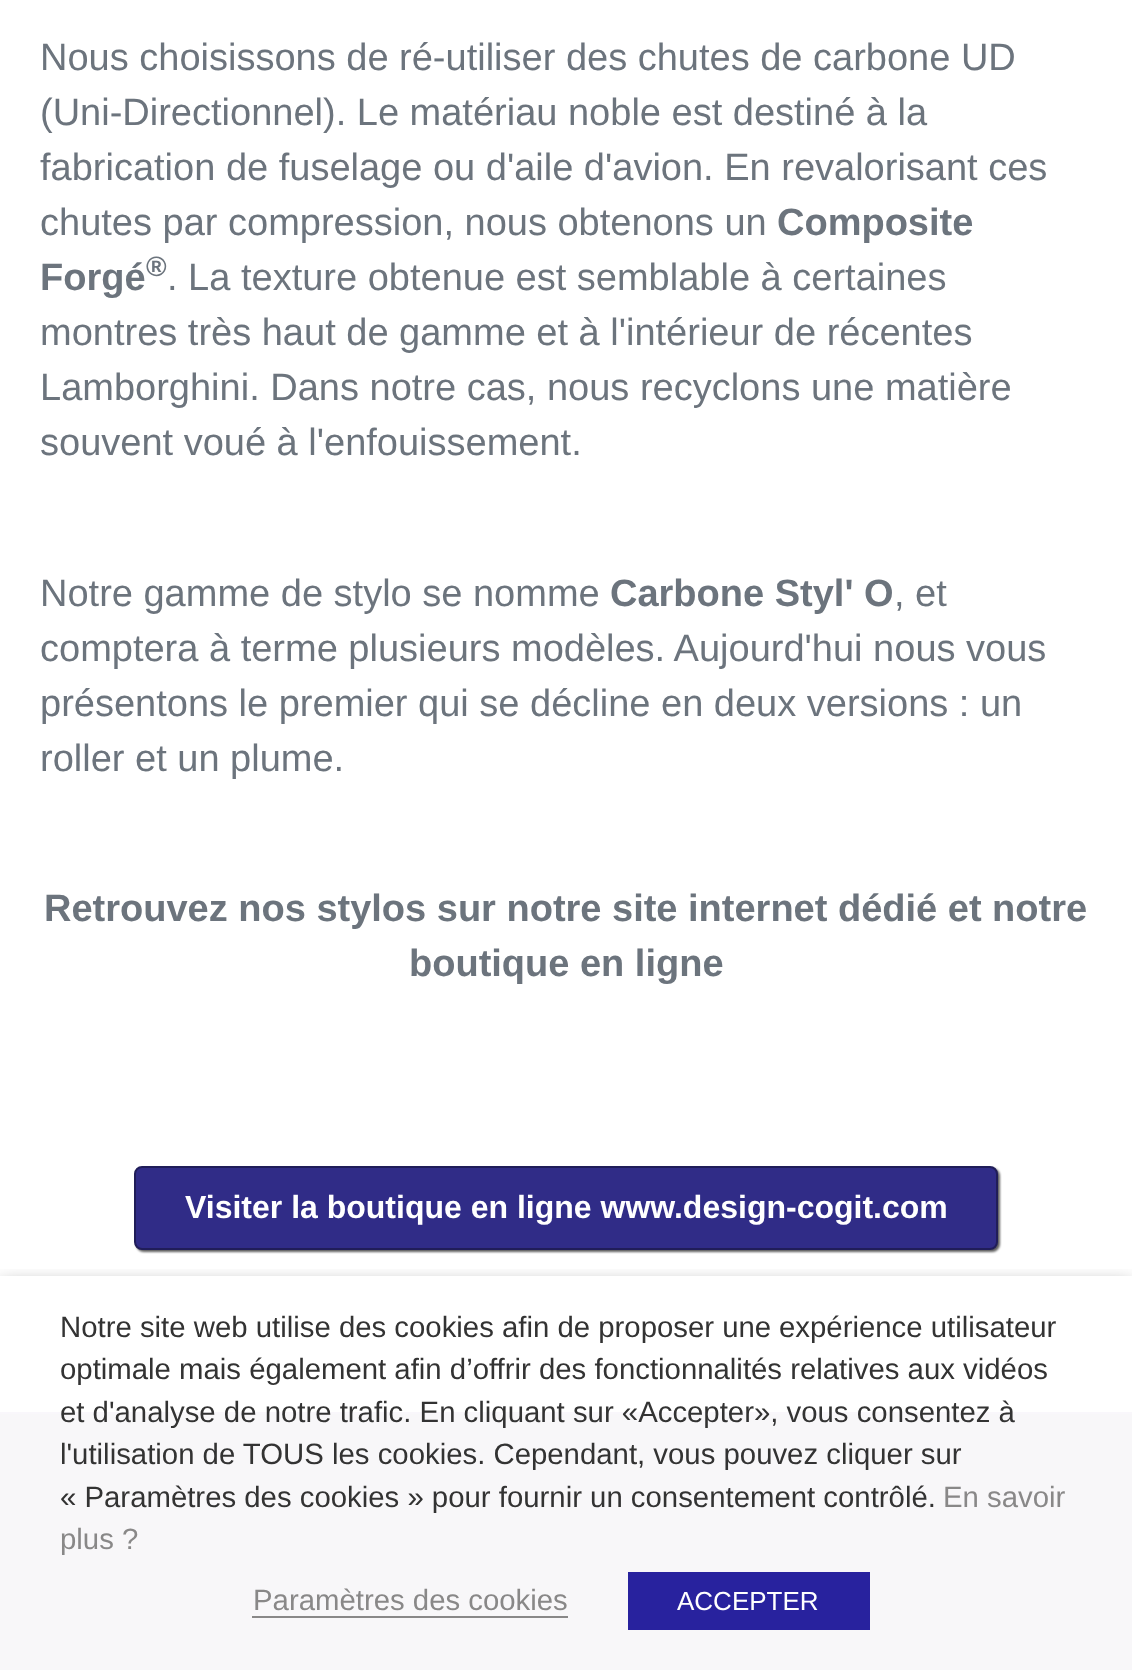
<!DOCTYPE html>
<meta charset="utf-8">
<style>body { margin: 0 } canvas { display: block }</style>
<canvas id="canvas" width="1132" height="1670"></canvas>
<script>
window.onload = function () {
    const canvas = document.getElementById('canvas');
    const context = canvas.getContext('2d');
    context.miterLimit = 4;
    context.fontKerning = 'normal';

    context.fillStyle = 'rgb(255, 255, 255)';
    context.fillRect(0, 0, 1132, 1670);
    context.fillStyle = 'rgba(0, 0, 0, 0.63)';
    context.filter = 'blur(1px)';
    context.beginPath();
    context.roundRect(136, 1168, 864, 84, 8);
    context.fill();
    context.filter = 'none';
    context.fillStyle = 'rgb(48, 44, 135)';
    context.beginPath();
    context.roundRect(135, 1167, 862, 82, 7);
    context.fill();
    context.strokeStyle = 'rgb(32, 29, 89)';
    context.lineWidth = 2;
    context.stroke();
    context.fillStyle = 'rgb(248, 247, 249)';
    context.fillRect(0, 1414, 1132, 256);
    context.fillStyle = 'rgb(249, 247, 251)';
    context.fillRect(0, 1412, 1132, 2);
    context.save();
    context.beginPath();
    context.rect(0, 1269, 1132, 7);
    context.clip();
    context.fillStyle = 'rgba(0, 0, 0, 0.5)';
    context.filter = 'blur(10px)';
    context.beginPath();
    context.rect(0, 1286, 1132, 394);
    context.fill();
    context.filter = 'none';
    context.restore();
    context.fillStyle = 'rgb(137, 136, 136)';
    context.fillRect(252, 1616, 316, 2);
    context.fillStyle = 'rgb(40, 34, 158)';
    context.fillRect(628, 1572, 242, 58);
    context.font = '38px Liberation Sans';
    context.fillStyle = 'rgb(108, 116, 125)';
    context.fillText('Nous choisissons de ré-utiliser des chutes de carbone UD', 40, 70);
    context.fillText('(Uni-Directionnel). Le matériau noble est destiné à la', 40, 125);
    context.fillText('fabrication de fuselage ou d\'aile d\'avion. En revalorisant ces', 40, 180);
    context.fillText('chutes par compression, nous obtenons un', 40, 235);
    context.font = 'bold 38px Liberation Sans';
    context.fillText('Composite', 777, 235);
    context.fillText('Forgé', 40, 290);
    context.font = 'bold 28px Liberation Sans';
    context.fillText('®', 146, 276);
    context.font = '38px Liberation Sans';
    context.fillText('. La texture obtenue est semblable à certaines', 167, 290);
    context.fillText('montres très haut de gamme et à l\'intérieur de récentes', 40, 345);
    context.fillText('Lamborghini. Dans notre cas, nous recyclons une matière', 40, 400);
    context.fillText('souvent voué à l\'enfouissement.', 40, 455);
    context.fillText('Notre gamme de stylo se nomme', 40, 606);
    context.font = 'bold 38px Liberation Sans';
    context.fillText('Carbone Styl\' O', 610, 606);
    context.font = '38px Liberation Sans';
    context.fillText(', et', 894, 606);
    context.fillText('comptera à terme plusieurs modèles. Aujourd\'hui nous vous', 40, 661);
    context.fillText('présentons le premier qui se décline en deux versions : un', 40, 716);
    context.fillText('roller et un plume.', 40, 771);
    context.font = 'bold 38px Liberation Sans';
    context.fillText('Retrouvez nos stylos sur notre site internet dédié et notre', 44, 921);
    context.fillText('boutique en ligne', 409, 976);
    context.font = 'bold 32px Liberation Sans';
    context.fillStyle = 'rgb(255, 255, 255)';
    context.fillText('Visiter la boutique en ligne www.design-cogit.com', 185, 1218);
    context.font = '29.35px Liberation Sans';
    context.fillStyle = 'rgb(51, 51, 51)';
    context.fillText('Notre site web utilise des cookies afin de proposer une', 60, 1337);
    context.fillText('expérience utilisateur', 779, 1337);
    context.fillText('optimale mais également afin d’offrir des fonctionnalités relatives aux vidéos', 60, 1379);
    context.fillText('et d\'analyse de notre trafic. En cliquant sur «Accepter», vous consentez à', 60, 1422);
    context.fillText('l\'utilisation de TOUS les cookies. Cependant, vous pouvez cliquer sur', 60, 1464);
    context.fillText('« Paramètres des cookies » pour fournir un consentement contrôlé.', 60, 1507);
    context.fillStyle = 'rgb(137, 136, 136)';
    context.fillText('En savoir', 943, 1507);
    context.fillText('plus ?', 60, 1549);
    context.fillText('Paramètres des cookies', 253, 1610);
    context.font = '26px Liberation Sans';
    context.fillStyle = 'rgb(255, 255, 255)';
    context.fillText('ACCEPTER', 677, 1610);
};
</script>
